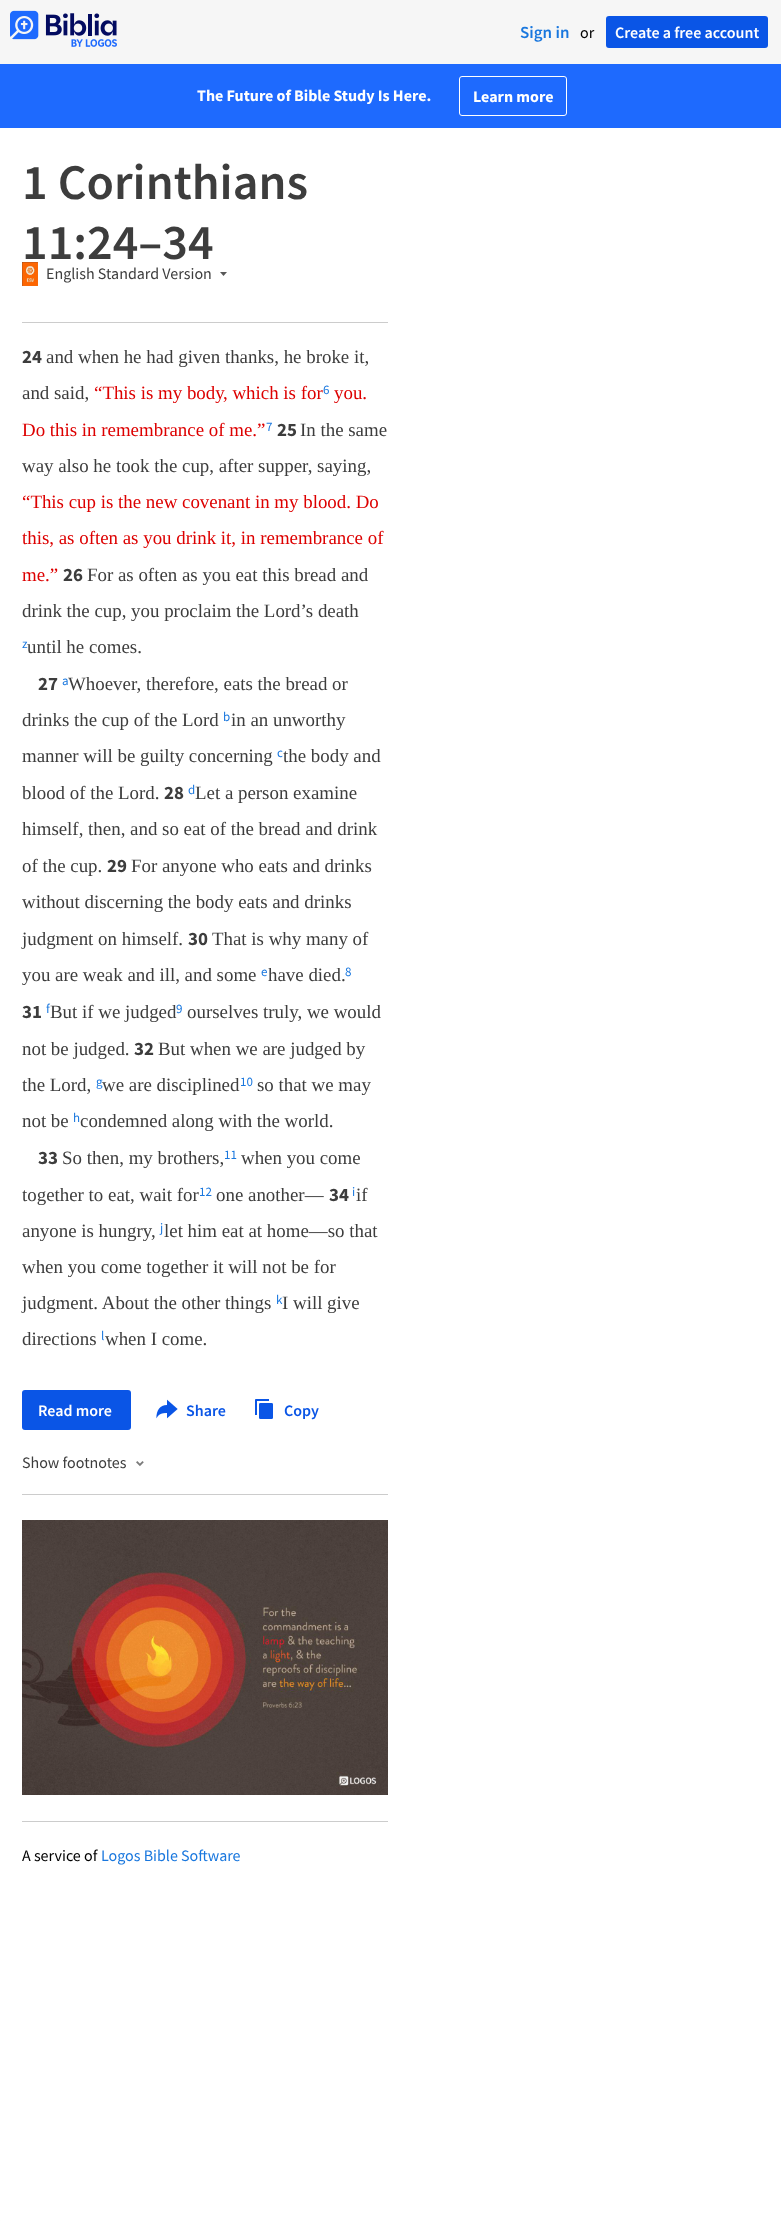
<!DOCTYPE html>
<meta charset="utf-8">
<style>body { margin: 0 } canvas { display: block }</style>
<canvas id="canvas" width="781" height="2221"></canvas>
<img id="img1" src="images/1.png" hidden>
<img id="img2" src="images/2.png" hidden>
<img id="img3" src="images/3.png" hidden>
<img id="img4" src="images/4.png" hidden>
<img id="img5" src="images/5.png" hidden>
<img id="img6" src="images/6.png" hidden>
<script>
window.onload = function () {
    const canvas = document.getElementById('canvas');
    const context = canvas.getContext('2d');
    context.miterLimit = 4;
    context.fontKerning = 'normal';

    context.fillStyle = 'rgb(246, 246, 246)';
    context.fillRect(0, 0, 781, 2221);
    context.drawImage(document.getElementById('img1'), 10, 10, 107, 37);
    context.fillStyle = 'rgb(10, 85, 230)';
    context.beginPath();
    context.roundRect(606, 16, 162, 32, 3);
    context.fill();
    context.fillStyle = 'rgb(30, 106, 254)';
    context.fillRect(0, 64, 781, 64);
    context.beginPath();
    context.roundRect(459.5, 76.5, 107, 39, 2.5);
    context.strokeStyle = 'rgb(255, 255, 255)';
    context.stroke();
    context.fillStyle = 'rgb(255, 255, 255)';
    context.beginPath();
    context.roundRect(-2, 128, 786, 2093, 4);
    context.fill();
    context.fillStyle = 'rgb(204, 204, 204)';
    context.fillRect(22, 322, 366, 1);
    context.drawImage(document.getElementById('img2'), 22, 262, 16, 24);
    context.fillStyle = 'rgb(88, 88, 88)';
    context.beginPath();
    context.moveTo(223.5, 276);
    context.lineTo(227, 272);
    context.lineTo(220, 272);
    context.closePath();
    context.fill('evenodd');
    context.fillStyle = 'rgb(10, 85, 230)';
    context.beginPath();
    context.roundRect(22, 1390, 109, 40, 3);
    context.fill();
    context.drawImage(document.getElementById('img3'), 156, 1399, 22, 20);
    context.drawImage(document.getElementById('img4'), 255, 1399, 18, 20);
    context.drawImage(document.getElementById('img5'), 136, 1461, 8, 6);
    context.fillStyle = 'rgb(204, 204, 204)';
    context.fillRect(22, 1494, 366, 1);
    context.drawImage(document.getElementById('img6'), 22, 1520, 366, 275);
    context.fillRect(22, 1821, 366, 1);
    context.font = '600 17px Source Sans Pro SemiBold';
    context.fillStyle = 'rgb(25, 119, 222)';
    context.fillText('Sign in', 520, 38);
    context.font = '16px Source Sans Pro';
    context.fillStyle = 'rgb(0, 0, 0)';
    context.fillText('or', 580, 38);
    context.font = '600 16px Source Sans Pro SemiBold';
    context.fillStyle = 'rgb(255, 255, 255)';
    context.fillText('Create a free account', 615, 38);
    context.font = 'bold 16px Source Sans Pro';
    context.fillText('The Future of Bible Study Is Here.', 197, 101);
    context.fillText('Learn more', 473, 102);
    context.font = '600 50px Source Sans Pro SemiBold';
    context.fillStyle = 'rgb(61, 61, 61)';
    context.fillText('1 Corinthians', 22, 199);
    context.fillText('11:24–34', 22, 259);
    context.font = '16px Source Sans Pro';
    context.fillText('English Standard Version', 46, 279);
    context.font = 'bold 18.9px Source Sans Pro';
    context.fillText('24', 22, 363);
    context.font = '18.9px Liberation Serif';
    context.fillText('and when he had given thanks, he broke it,', 46, 363);
    context.fillText('and said,', 22, 399);
    context.fillStyle = 'rgb(221, 0, 0)';
    context.fillText('“This is my body', 94, 399);
    context.fillText(', which is for', 223, 399);
    context.font = '13px Source Sans Pro';
    context.fillStyle = 'rgb(25, 119, 222)';
    context.fillText('6', 323, 394);
    context.font = '18.9px Liberation Serif';
    context.fillStyle = 'rgb(221, 0, 0)';
    context.fillText('you.', 334, 399);
    context.fillText('Do this in remembrance of me.”', 22, 436);
    context.font = '13px Source Sans Pro';
    context.fillStyle = 'rgb(25, 119, 222)';
    context.fillText('7', 266, 431);
    context.font = 'bold 18.9px Source Sans Pro';
    context.fillStyle = 'rgb(61, 61, 61)';
    context.fillText('25', 277, 436);
    context.font = '18.9px Liberation Serif';
    context.fillText('In the same', 300, 436);
    context.fillText('way also he took the cup, after supper, saying,', 22, 472);
    context.fillStyle = 'rgb(221, 0, 0)';
    context.fillText('“This cup is the new covenant in my blood. Do', 22, 508);
    context.fillText('this, as often as you drink it, in remembrance of', 22, 544);
    context.fillText('me.”', 22, 581);
    context.font = 'bold 18.9px Source Sans Pro';
    context.fillStyle = 'rgb(61, 61, 61)';
    context.fillText('26', 63, 581);
    context.font = '18.9px Liberation Serif';
    context.fillText('For as often as you eat this bread and', 87, 581);
    context.fillText('drink the cup, you proclaim the Lord’s death', 22, 617);
    context.font = '13px Source Sans Pro';
    context.fillStyle = 'rgb(25, 119, 222)';
    context.fillText('z', 22, 648);
    context.font = '18.9px Liberation Serif';
    context.fillStyle = 'rgb(61, 61, 61)';
    context.fillText('until he comes.', 27, 653);
    context.font = 'bold 18.9px Source Sans Pro';
    context.fillText('27', 38, 690);
    context.font = '13px Source Sans Pro';
    context.fillStyle = 'rgb(25, 119, 222)';
    context.fillText('a', 62, 685);
    context.font = '18.9px Liberation Serif';
    context.fillStyle = 'rgb(61, 61, 61)';
    context.fillText('Whoever, therefore, eats the bread or', 68, 690);
    context.fillText('drinks the cup of the Lord', 22, 726);
    context.font = '13px Source Sans Pro';
    context.fillStyle = 'rgb(25, 119, 222)';
    context.fillText('b', 223, 721);
    context.font = '18.9px Liberation Serif';
    context.fillStyle = 'rgb(61, 61, 61)';
    context.fillText('in an unworthy', 231, 726);
    context.fillText('manner will be guilty concerning', 22, 762);
    context.font = '13px Source Sans Pro';
    context.fillStyle = 'rgb(25, 119, 222)';
    context.fillText('c', 277, 757);
    context.font = '18.9px Liberation Serif';
    context.fillStyle = 'rgb(61, 61, 61)';
    context.fillText('the body and', 283, 762);
    context.fillText('blood of the Lord.', 22, 799);
    context.font = 'bold 18.9px Source Sans Pro';
    context.fillText('28', 164, 799);
    context.font = '13px Source Sans Pro';
    context.fillStyle = 'rgb(25, 119, 222)';
    context.fillText('d', 188, 794);
    context.font = '18.9px Liberation Serif';
    context.fillStyle = 'rgb(61, 61, 61)';
    context.fillText('Let a person examine', 195, 799);
    context.fillText('himself, then, and so eat of the bread and drink', 22, 835);
    context.fillText('of the cup.', 22, 872);
    context.font = 'bold 18.9px Source Sans Pro';
    context.fillText('29', 107, 872);
    context.font = '18.9px Liberation Serif';
    context.fillText('For anyone who eats and drinks', 131, 872);
    context.fillText('without discerning the body eats and drinks', 22, 908);
    context.fillText('judgment on himself.', 22, 945);
    context.font = 'bold 18.9px Source Sans Pro';
    context.fillText('30', 188, 945);
    context.font = '18.9px Liberation Serif';
    context.fillText('That is why many of', 212, 945);
    context.fillText('you are weak and ill, and some', 22, 981);
    context.font = '13px Source Sans Pro';
    context.fillStyle = 'rgb(25, 119, 222)';
    context.fillText('e', 261, 976);
    context.font = '18.9px Liberation Serif';
    context.fillStyle = 'rgb(61, 61, 61)';
    context.fillText('have died.', 268, 981);
    context.font = '13px Source Sans Pro';
    context.fillStyle = 'rgb(25, 119, 222)';
    context.fillText('8', 345, 976);
    context.font = 'bold 18.9px Source Sans Pro';
    context.fillStyle = 'rgb(61, 61, 61)';
    context.fillText('31', 22, 1018);
    context.font = '13px Source Sans Pro';
    context.fillStyle = 'rgb(25, 119, 222)';
    context.fillText('f', 46, 1013);
    context.font = '18.9px Liberation Serif';
    context.fillStyle = 'rgb(61, 61, 61)';
    context.fillText('But if we judged', 50, 1018);
    context.font = '13px Source Sans Pro';
    context.fillStyle = 'rgb(25, 119, 222)';
    context.fillText('9', 176, 1013);
    context.font = '18.9px Liberation Serif';
    context.fillStyle = 'rgb(61, 61, 61)';
    context.fillText('ourselves truly, we would', 187, 1018);
    context.fillText('not be judged.', 22, 1055);
    context.font = 'bold 18.9px Source Sans Pro';
    context.fillText('32', 134, 1055);
    context.font = '18.9px Liberation Serif';
    context.fillText('But when we are judged by', 158, 1055);
    context.fillText('the Lord,', 22, 1091);
    context.font = '13px Source Sans Pro';
    context.fillStyle = 'rgb(25, 119, 222)';
    context.fillText('g', 96, 1086);
    context.font = '18.9px Liberation Serif';
    context.fillStyle = 'rgb(61, 61, 61)';
    context.fillText('we are disciplined', 102, 1091);
    context.font = '13px Source Sans Pro';
    context.fillStyle = 'rgb(25, 119, 222)';
    context.fillText('10', 240, 1086);
    context.font = '18.9px Liberation Serif';
    context.fillStyle = 'rgb(61, 61, 61)';
    context.fillText('so that we may', 257, 1091);
    context.fillText('not be', 22, 1127);
    context.font = '13px Source Sans Pro';
    context.fillStyle = 'rgb(25, 119, 222)';
    context.fillText('h', 73, 1122);
    context.font = '18.9px Liberation Serif';
    context.fillStyle = 'rgb(61, 61, 61)';
    context.fillText('condemned along with the world.', 80, 1127);
    context.font = 'bold 18.9px Source Sans Pro';
    context.fillText('33', 38, 1164);
    context.font = '18.9px Liberation Serif';
    context.fillText('So then, my brothers,', 62, 1164);
    context.font = '13px Source Sans Pro';
    context.fillStyle = 'rgb(25, 119, 222)';
    context.fillText('11', 224, 1159);
    context.font = '18.9px Liberation Serif';
    context.fillStyle = 'rgb(61, 61, 61)';
    context.fillText('when you come', 241, 1164);
    context.fillText('together to eat, wait for', 22, 1201);
    context.font = '13px Source Sans Pro';
    context.fillStyle = 'rgb(25, 119, 222)';
    context.fillText('12', 199, 1196);
    context.font = '18.9px Liberation Serif';
    context.fillStyle = 'rgb(61, 61, 61)';
    context.fillText('one another—', 216, 1201);
    context.font = 'bold 18.9px Source Sans Pro';
    context.fillText('34', 329, 1201);
    context.font = '13px Source Sans Pro';
    context.fillStyle = 'rgb(25, 119, 222)';
    context.fillText('i', 352, 1196);
    context.font = '18.9px Liberation Serif';
    context.fillStyle = 'rgb(61, 61, 61)';
    context.fillText('if', 356, 1201);
    context.fillText('anyone is hungry,', 22, 1237);
    context.font = '13px Source Sans Pro';
    context.fillStyle = 'rgb(25, 119, 222)';
    context.fillText('j', 160, 1232);
    context.font = '18.9px Liberation Serif';
    context.fillStyle = 'rgb(61, 61, 61)';
    context.fillText('let him eat at home—so that', 164, 1237);
    context.fillText('when you come together it will not be for', 22, 1273);
    context.fillText('judgment. About the other things', 22, 1309);
    context.font = '13px Source Sans Pro';
    context.fillStyle = 'rgb(25, 119, 222)';
    context.fillText('k', 276, 1304);
    context.font = '18.9px Liberation Serif';
    context.fillStyle = 'rgb(61, 61, 61)';
    context.fillText('I will give', 282, 1309);
    context.fillText('directions', 22, 1345);
    context.font = '13px Source Sans Pro';
    context.fillStyle = 'rgb(25, 119, 222)';
    context.fillText('l', 101, 1340);
    context.font = '18.9px Liberation Serif';
    context.fillStyle = 'rgb(61, 61, 61)';
    context.fillText('when I come.', 105, 1345);
    context.font = '600 16px Source Sans Pro SemiBold';
    context.fillStyle = 'rgb(255, 255, 255)';
    context.fillText('Read more', 38, 1416);
    context.fillStyle = 'rgb(10, 85, 230)';
    context.fillText('Share', 186, 1416);
    context.fillText('Copy', 284, 1416);
    context.font = '16px Source Sans Pro';
    context.fillStyle = 'rgb(61, 61, 61)';
    context.fillText('Show footnotes', 22, 1468);
    context.fillStyle = 'rgb(0, 0, 0)';
    context.fillText('A service of', 22, 1861);
    context.fillStyle = 'rgb(25, 119, 222)';
    context.fillText('Logos Bible Software', 101, 1861);
};
</script>
